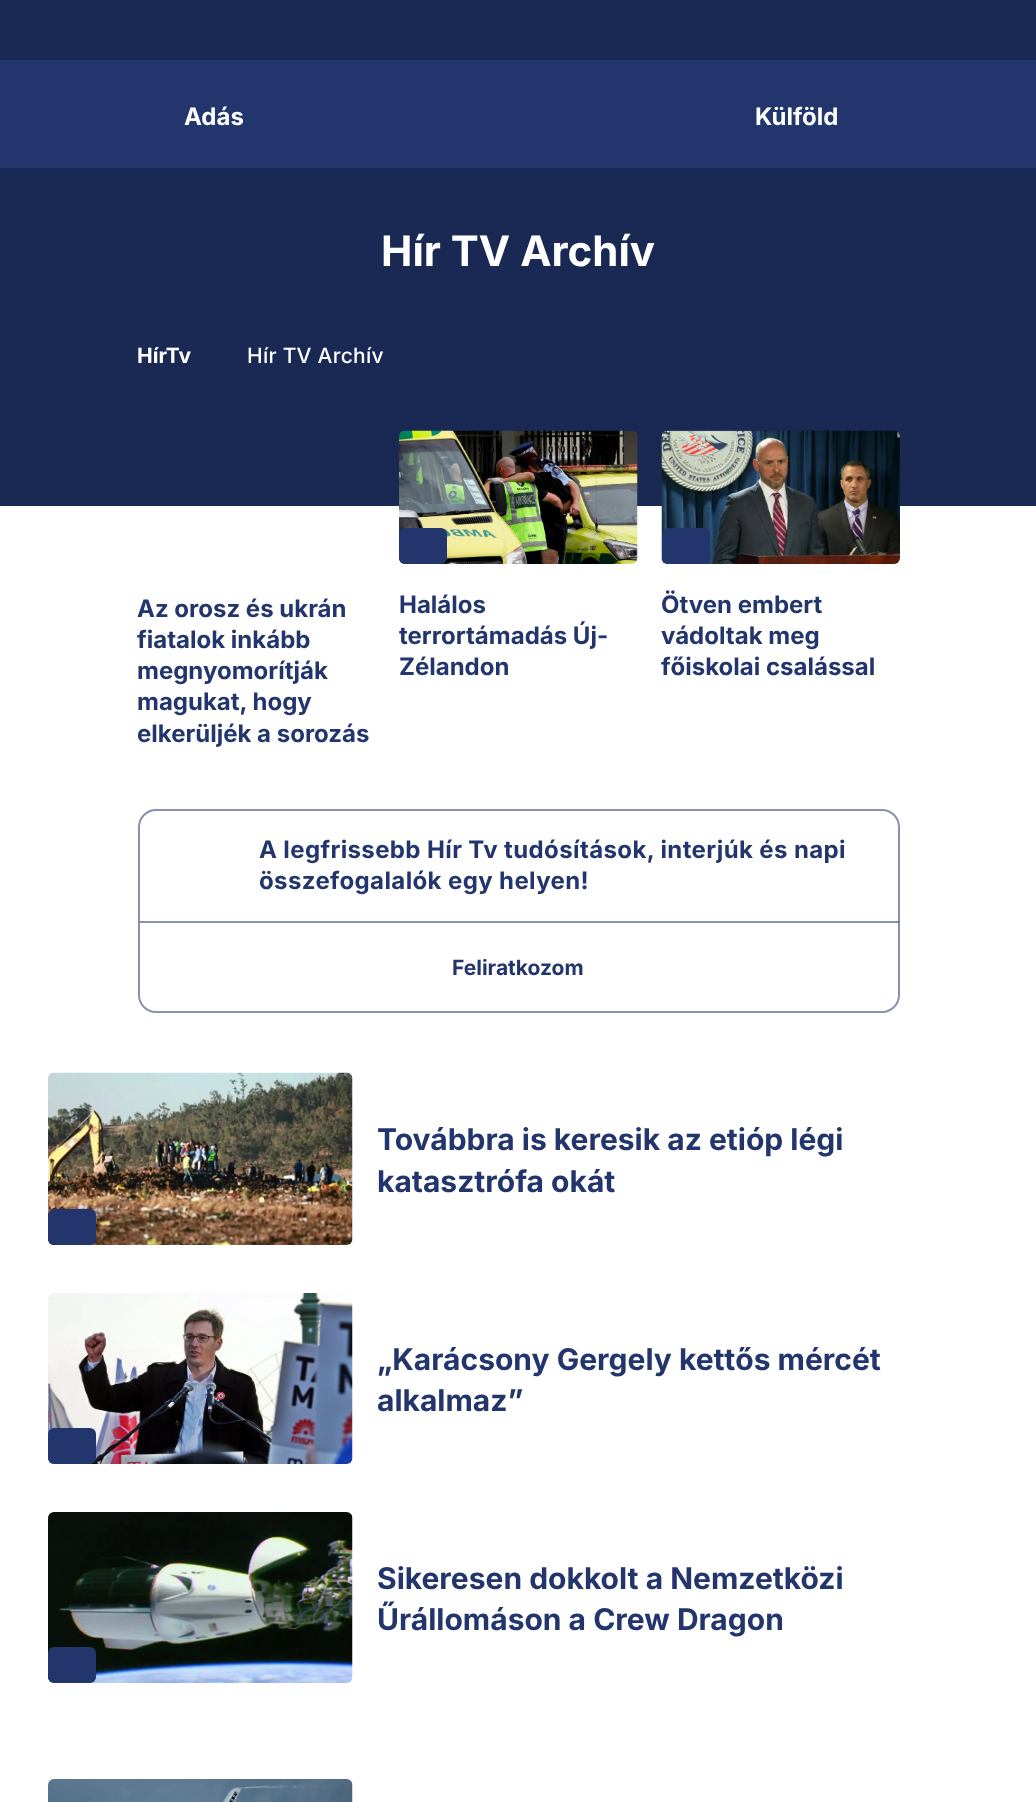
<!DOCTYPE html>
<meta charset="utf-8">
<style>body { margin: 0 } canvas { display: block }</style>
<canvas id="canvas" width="1036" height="1802"></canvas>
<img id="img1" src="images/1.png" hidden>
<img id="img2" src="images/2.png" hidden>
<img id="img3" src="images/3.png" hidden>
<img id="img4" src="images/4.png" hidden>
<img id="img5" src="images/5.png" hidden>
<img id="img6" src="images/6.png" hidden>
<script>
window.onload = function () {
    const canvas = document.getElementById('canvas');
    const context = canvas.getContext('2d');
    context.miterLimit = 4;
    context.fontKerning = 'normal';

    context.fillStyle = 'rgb(255, 255, 255)';
    context.fillRect(0, 0, 1036, 1802);
    context.fillStyle = 'rgb(26, 41, 83)';
    context.fillRect(0, 0, 1036, 60);
    context.fillStyle = 'rgb(34, 53, 108)';
    context.fillRect(0, 60, 1036, 108);
    context.beginPath();
    context.roundRect(168, 165, 143, 3, [12, 12, 0, 0]);
    context.fill();
    context.beginPath();
    context.roundRect(713, 165, 169, 3, [12, 12, 0, 0]);
    context.fill();
    context.fillStyle = 'rgb(26, 41, 83)';
    context.fillRect(0, 168, 1036, 338);
    context.drawImage(document.getElementById('img1'), 399, 430, 239, 134);
    context.fillStyle = 'rgb(34, 53, 108)';
    context.beginPath();
    context.roundRect(399, 528, 48, 36, 6);
    context.fill();
    context.drawImage(document.getElementById('img2'), 661, 430, 239, 134);
    context.beginPath();
    context.roundRect(662, 528, 48, 36, 6);
    context.fill();
    context.beginPath();
    context.roundRect(139, 810, 760, 202, 17);
    context.strokeStyle = 'rgb(136, 146, 176)';
    context.lineWidth = 2;
    context.stroke();
    context.fillStyle = 'rgba(34, 53, 108, 0.54)';
    context.fillRect(140, 921, 759, 2);
    context.drawImage(document.getElementById('img3'), 48, 1072, 305, 173);
    context.fillStyle = 'rgb(34, 53, 108)';
    context.beginPath();
    context.roundRect(48, 1209, 48, 36, 6);
    context.fill();
    context.drawImage(document.getElementById('img4'), 48, 1293, 305, 171);
    context.beginPath();
    context.roundRect(48, 1428, 48, 36, 6);
    context.fill();
    context.drawImage(document.getElementById('img5'), 48, 1512, 305, 171);
    context.beginPath();
    context.roundRect(48, 1647, 48, 36, 6);
    context.fill();
    context.drawImage(document.getElementById('img6'), 48, 1779, 305, 23);
    context.font = 'bold 24px Inter';
    context.fillStyle = 'rgb(255, 255, 255)';
    context.fillText('Adás', 184, 125);
    context.fillText('Külföld', 755, 125);
    context.font = 'bold 42px Inter';
    context.fillText('Hír TV Archív', 381, 266);
    context.font = 'bold 21px Inter';
    context.fillText('HírTv', 137, 363);
    context.letterSpacing = '0.25px';
    context.font = '500 21px Inter';
    context.fillText('Hír TV Archív', 247, 363);
    context.letterSpacing = '0px';
    context.font = 'bold 24px Inter';
    context.fillStyle = 'rgb(34, 53, 108)';
    context.fillText('Az orosz és ukrán', 137, 617);
    context.fillText('fiatalok inkább', 137, 648);
    context.fillText('megnyomorítják', 137, 679);
    context.fillText('magukat, hogy', 137, 710);
    context.fillText('elkerüljék a sorozás', 137, 742);
    context.fillText('Halálos', 399, 613);
    context.fillText('terrortámadás Új-', 399, 644);
    context.fillText('Zélandon', 399, 675);
    context.fillText('Ötven embert', 661, 613);
    context.fillText('vádoltak meg', 661, 644);
    context.fillText('főiskolai csalással', 661, 675);
    context.letterSpacing = '0.38px';
    context.fillText('A legfrissebb Hír Tv tudósítások, interjúk és napi', 259, 858);
    context.fillText('összefogalalók egy helyen!', 259, 889);
    context.letterSpacing = '0px';
    context.font = 'bold 21px Inter';
    context.fillText('Feliratkozom', 452, 975);
    context.font = 'bold 30px Inter';
    context.fillText('Továbbra is keresik az etióp légi', 377, 1150);
    context.fillText('katasztrófa okát', 377, 1192);
    context.fillText('„Karácsony Gergely kettős mércét', 377, 1370);
    context.fillText('alkalmaz”', 377, 1411);
    context.fillText('Sikeresen dokkolt a Nemzetközi', 377, 1589);
    context.fillText('Űrállomáson a Crew Dragon', 377, 1630);
};
</script>
